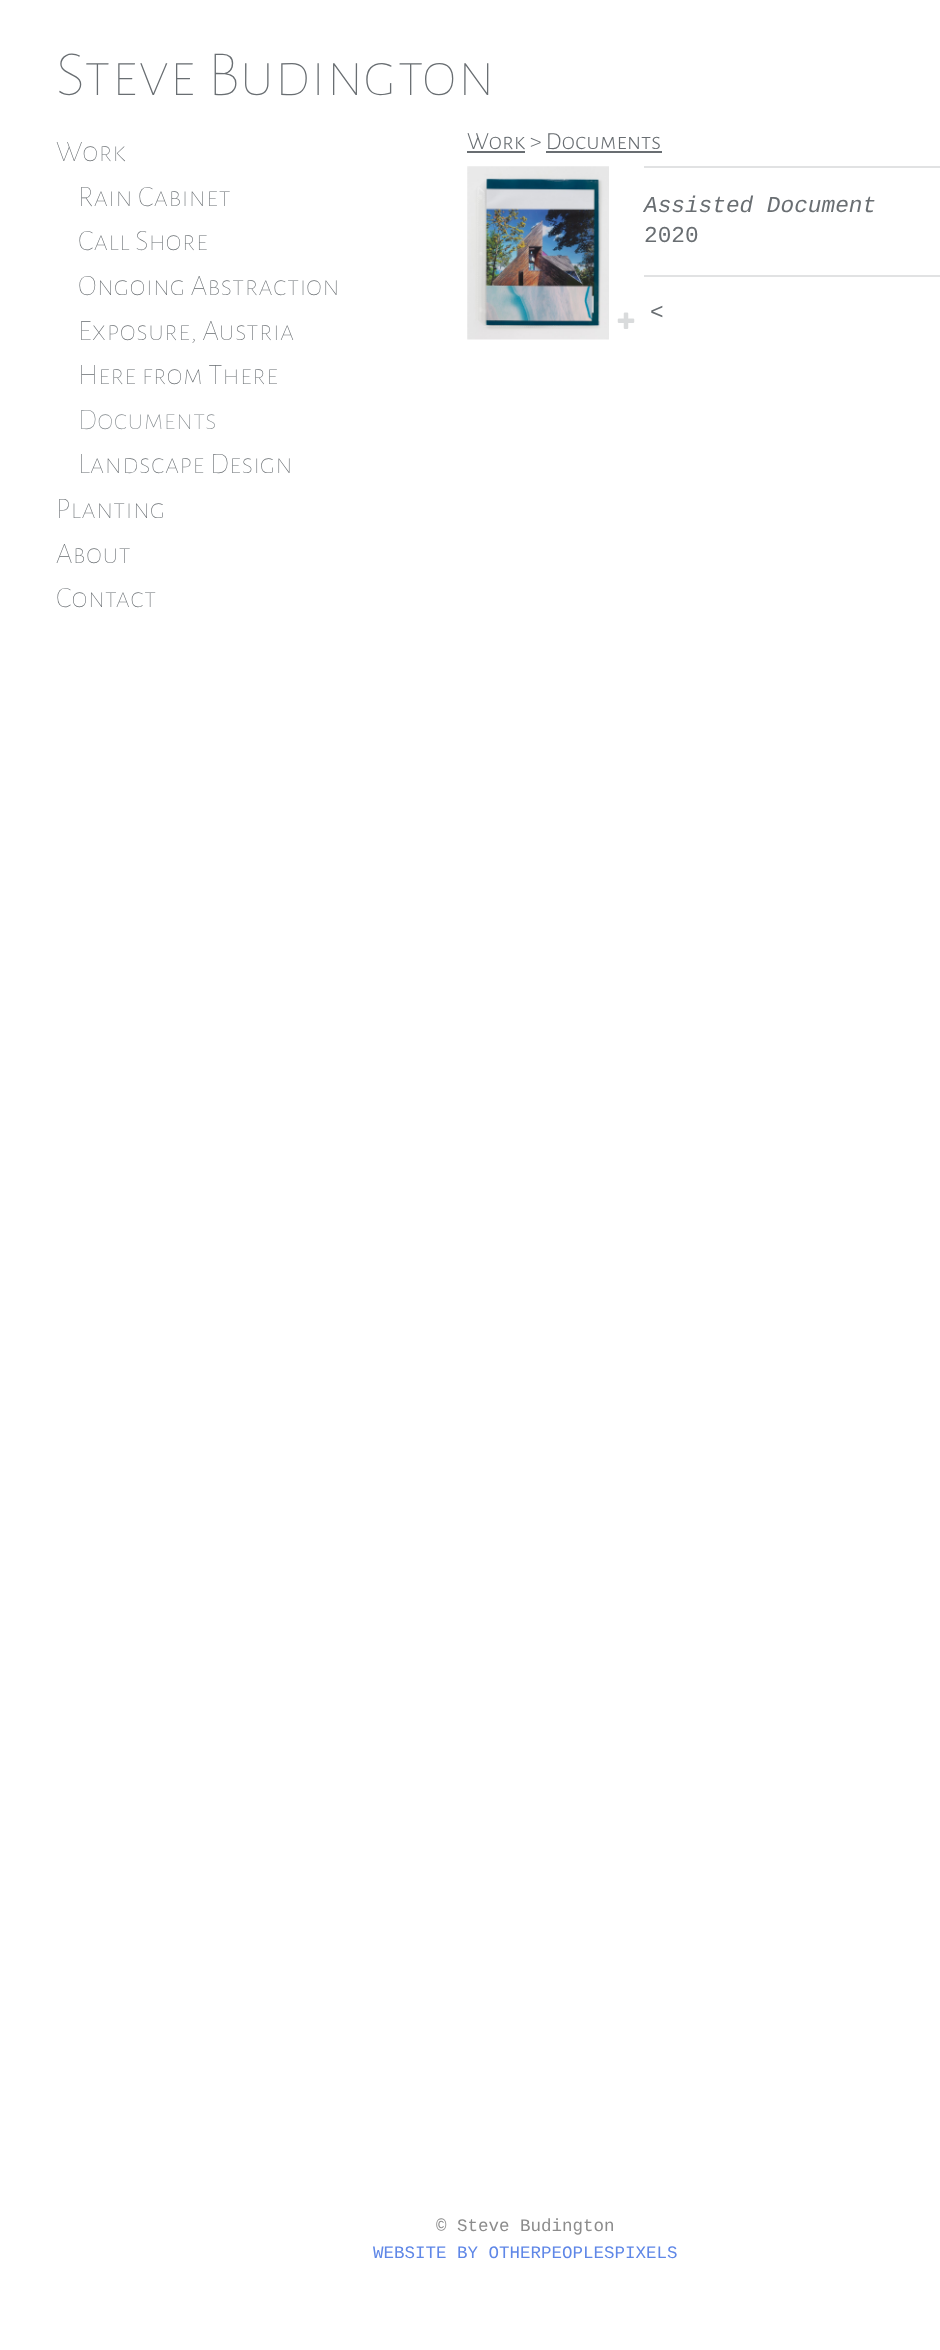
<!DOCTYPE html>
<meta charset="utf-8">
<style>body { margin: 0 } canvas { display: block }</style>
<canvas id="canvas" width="940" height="2350"></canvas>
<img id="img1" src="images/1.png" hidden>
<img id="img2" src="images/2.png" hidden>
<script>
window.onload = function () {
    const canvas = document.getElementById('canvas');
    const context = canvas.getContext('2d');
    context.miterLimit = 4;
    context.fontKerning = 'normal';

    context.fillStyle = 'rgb(255, 255, 255)';
    context.fillRect(0, 0, 940, 2350);
    context.fillStyle = 'rgb(105, 110, 114)';
    context.fillRect(467, 151, 58, 2);
    context.fillRect(546, 151, 116, 2);
    context.drawImage(document.getElementById('img1'), 467, 166, 142, 174);
    context.drawImage(document.getElementById('img2'), 617, 312, 18, 17);
    context.fillStyle = 'rgb(225, 226, 227)';
    context.fillRect(644, 166, 296, 2);
    context.fillRect(644, 275, 296, 2);
    context.font = '100 64.75px Alegreya Sans SC';
    context.fillStyle = 'rgb(105, 110, 114)';
    context.fillText('Steve Budington', 56, 95);
    context.font = '100 29.75px Alegreya Sans SC';
    context.fillText('Work', 56, 161);
    context.fillText('Rain Cabinet', 78, 206);
    context.fillText('Call Shore', 78, 250);
    context.fillText('Ongoing Abstraction', 78, 295);
    context.fillText('Exposure, Austria', 78, 340);
    context.fillText('Here from There', 78, 384);
    context.fillStyle = 'rgb(130, 136, 140)';
    context.fillText('Documents', 78, 429);
    context.fillStyle = 'rgb(105, 110, 114)';
    context.fillText('Landscape Design', 78, 473);
    context.fillText('Planting', 56, 518);
    context.fillText('About', 56, 563);
    context.fillText('Contact', 56, 607);
    context.font = '300 24.5px Alegreya Sans SC';
    context.fillText('Work > Documents', 467, 149);
    context.font = 'italic 22.75px Liberation Mono';
    context.fillText('Assisted Document', 644, 212);
    context.font = '22.75px Liberation Mono';
    context.fillText('2020', 644, 242);
    context.letterSpacing = '2px';
    context.font = 'italic 22.75px Liberation Mono';
    context.fillText('<', 650, 319);
    context.letterSpacing = '0px';
    context.font = '17.5px Liberation Mono';
    context.fillStyle = 'rgb(140, 140, 140)';
    context.fillText('© Steve Budington', 436, 2231);
    context.fillStyle = 'rgb(95, 135, 231)';
    context.fillText('WEBSITE BY OTHERPEOPLESPIXELS', 373, 2258);
};
</script>
